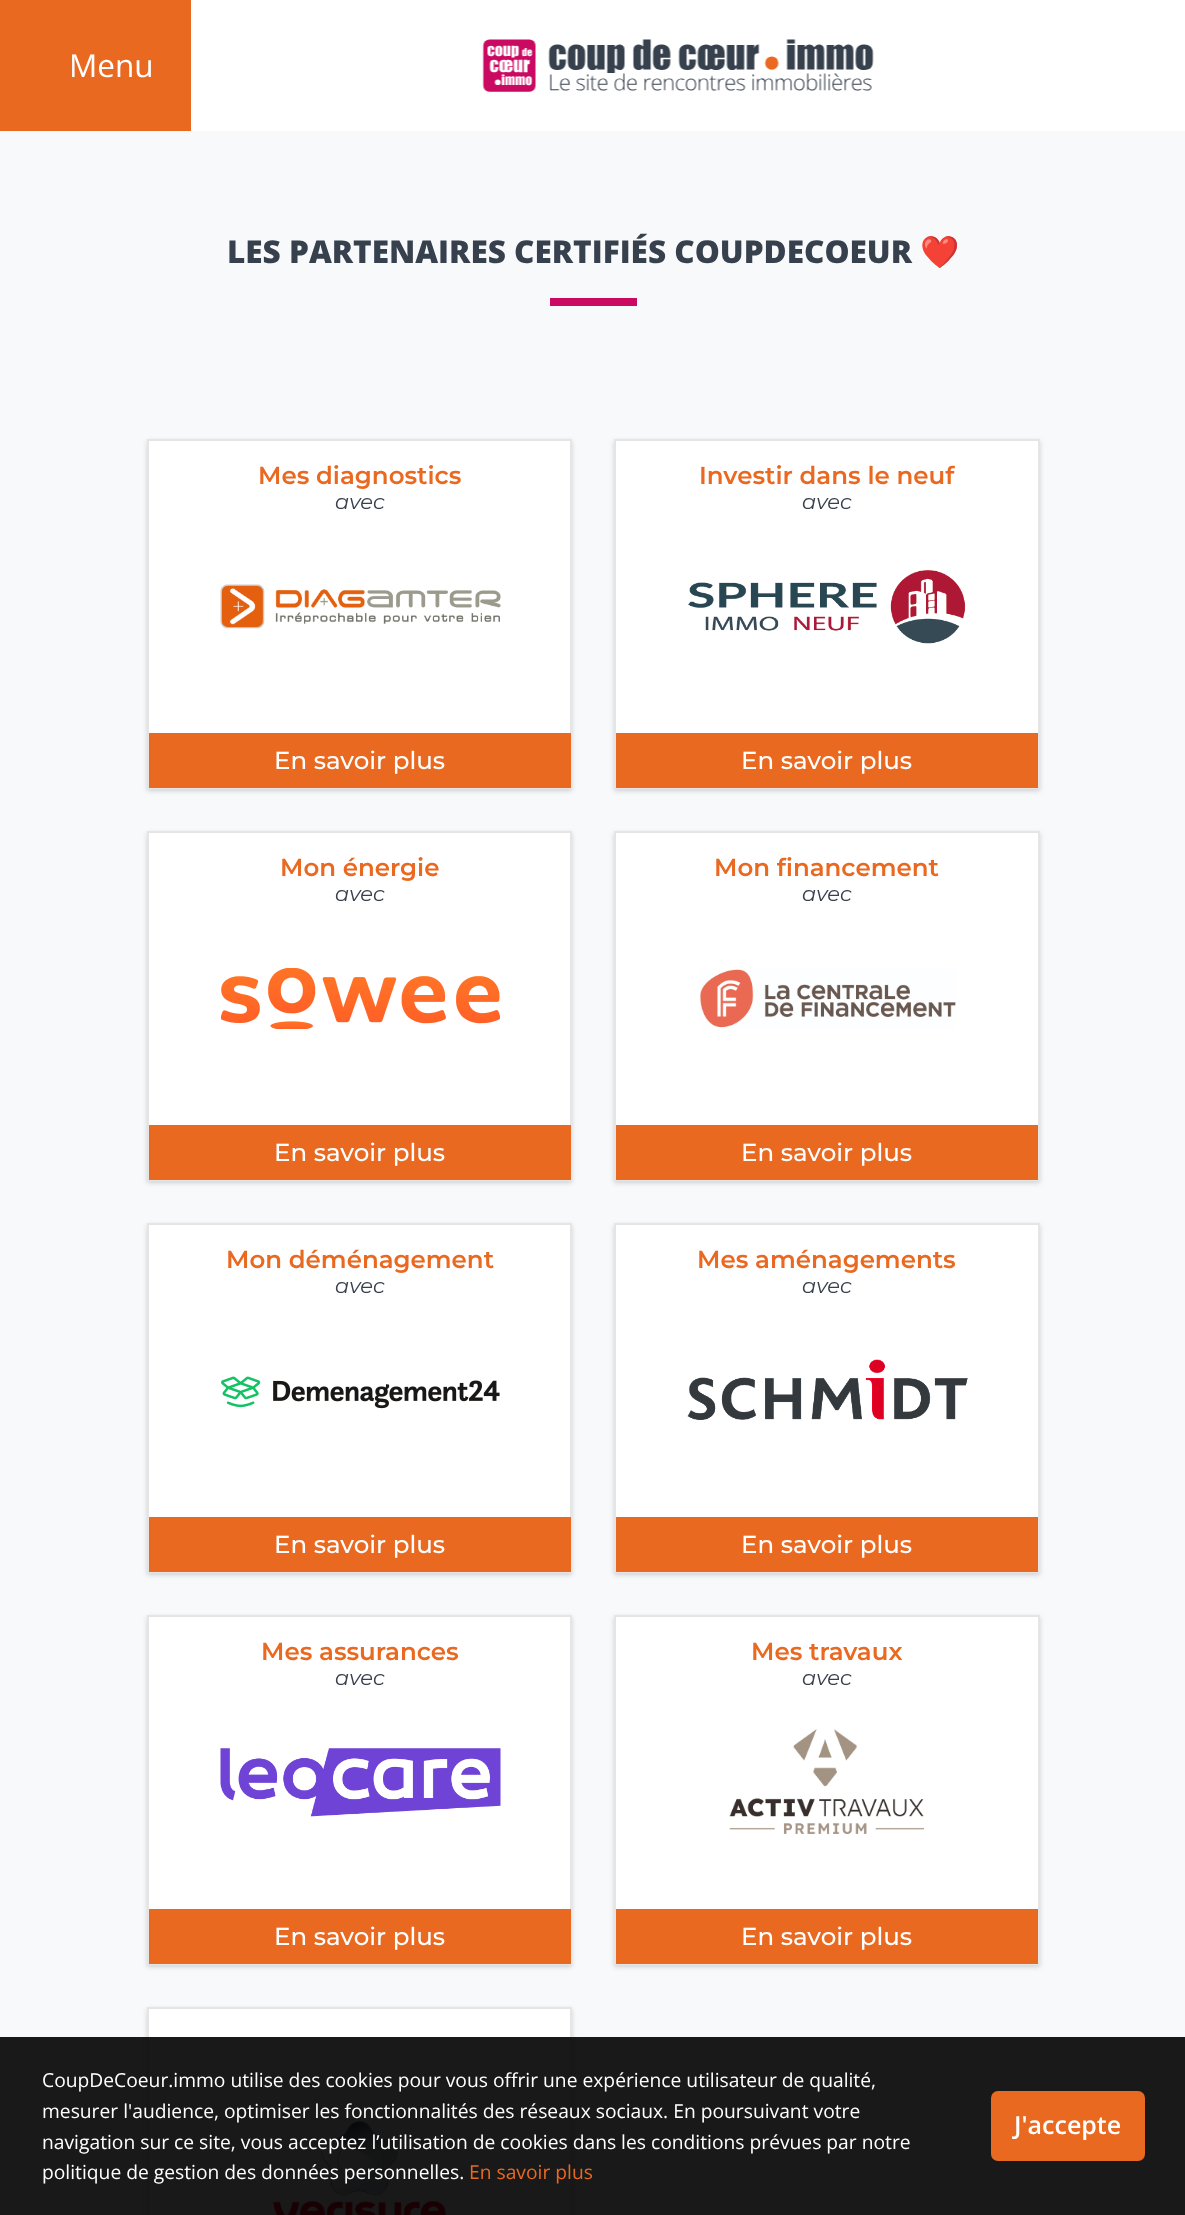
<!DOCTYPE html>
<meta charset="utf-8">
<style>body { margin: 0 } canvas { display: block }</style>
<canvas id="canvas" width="1185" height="2215"></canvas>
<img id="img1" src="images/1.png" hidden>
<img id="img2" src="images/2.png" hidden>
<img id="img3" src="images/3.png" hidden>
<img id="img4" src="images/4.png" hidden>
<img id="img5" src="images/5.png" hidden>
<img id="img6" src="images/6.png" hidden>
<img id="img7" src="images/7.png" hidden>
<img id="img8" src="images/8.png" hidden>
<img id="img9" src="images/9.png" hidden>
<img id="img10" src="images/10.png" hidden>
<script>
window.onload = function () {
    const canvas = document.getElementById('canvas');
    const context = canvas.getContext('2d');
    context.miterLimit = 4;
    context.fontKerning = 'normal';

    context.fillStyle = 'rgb(248, 249, 250)';
    context.fillRect(0, 0, 1185, 2215);
    context.fillStyle = 'rgb(255, 255, 255)';
    context.fillRect(191, 0, 994, 131);
    context.fillStyle = 'rgb(234, 105, 33)';
    context.fillRect(0, 0, 191, 131);
    context.drawImage(document.getElementById('img1'), 482, 39, 392, 53);
    context.fillStyle = 'rgb(202, 10, 98)';
    context.fillRect(550, 298, 87, 8);
    context.fillStyle = 'rgba(0, 0, 0, 0.06)';
    context.filter = 'blur(2px)';
    context.beginPath();
    context.rect(147, 441, 425, 350);
    context.fill();
    context.filter = 'none';
    context.fillStyle = 'rgba(0, 0, 0, 0.1)';
    context.filter = 'blur(2.5px)';
    context.beginPath();
    context.rect(147, 441, 425, 350);
    context.fill();
    context.filter = 'none';
    context.fillStyle = 'rgb(255, 255, 255)';
    context.fillRect(149, 441, 421, 292);
    context.strokeStyle = 'rgb(229, 229, 229)';
    context.lineWidth = 2;
    context.strokeRect(148, 440, 423, 348);
    context.drawImage(document.getElementById('img2'), 220, 584, 281, 45);
    context.fillStyle = 'rgb(234, 105, 33)';
    context.fillRect(149, 733, 422, 55);
    context.fillStyle = 'rgba(0, 0, 0, 0.06)';
    context.filter = 'blur(2px)';
    context.beginPath();
    context.rect(614, 441, 426, 350);
    context.fill();
    context.filter = 'none';
    context.fillStyle = 'rgba(0, 0, 0, 0.1)';
    context.filter = 'blur(2.5px)';
    context.beginPath();
    context.rect(614, 441, 426, 350);
    context.fill();
    context.filter = 'none';
    context.fillStyle = 'rgb(255, 255, 255)';
    context.fillRect(616, 441, 422, 292);
    context.strokeRect(615, 440, 424, 348);
    context.drawImage(document.getElementById('img3'), 688, 570, 278, 74);
    context.fillStyle = 'rgb(234, 105, 33)';
    context.fillRect(616, 733, 422, 55);
    context.fillStyle = 'rgba(0, 0, 0, 0.06)';
    context.filter = 'blur(2px)';
    context.beginPath();
    context.rect(147, 833, 425, 350);
    context.fill();
    context.filter = 'none';
    context.fillStyle = 'rgba(0, 0, 0, 0.1)';
    context.filter = 'blur(2.5px)';
    context.beginPath();
    context.rect(147, 833, 425, 350);
    context.fill();
    context.filter = 'none';
    context.fillStyle = 'rgb(255, 255, 255)';
    context.fillRect(149, 833, 421, 292);
    context.strokeRect(148, 832, 423, 348);
    context.drawImage(document.getElementById('img4'), 221, 968, 279, 61);
    context.fillStyle = 'rgb(234, 105, 33)';
    context.fillRect(149, 1125, 422, 55);
    context.fillStyle = 'rgba(0, 0, 0, 0.06)';
    context.filter = 'blur(2px)';
    context.beginPath();
    context.rect(614, 833, 426, 350);
    context.fill();
    context.filter = 'none';
    context.fillStyle = 'rgba(0, 0, 0, 0.1)';
    context.filter = 'blur(2.5px)';
    context.beginPath();
    context.rect(614, 833, 426, 350);
    context.fill();
    context.filter = 'none';
    context.fillStyle = 'rgb(255, 255, 255)';
    context.fillRect(616, 833, 422, 292);
    context.strokeRect(615, 832, 424, 348);
    context.drawImage(document.getElementById('img5'), 700, 969, 256, 59);
    context.fillStyle = 'rgb(234, 105, 33)';
    context.fillRect(616, 1125, 422, 55);
    context.fillStyle = 'rgba(0, 0, 0, 0.06)';
    context.filter = 'blur(2px)';
    context.beginPath();
    context.rect(147, 1225, 425, 350);
    context.fill();
    context.filter = 'none';
    context.fillStyle = 'rgba(0, 0, 0, 0.1)';
    context.filter = 'blur(2.5px)';
    context.beginPath();
    context.rect(147, 1225, 425, 350);
    context.fill();
    context.filter = 'none';
    context.fillStyle = 'rgb(255, 255, 255)';
    context.fillRect(149, 1225, 421, 292);
    context.strokeRect(148, 1224, 423, 348);
    context.drawImage(document.getElementById('img6'), 221, 1376, 279, 33);
    context.fillStyle = 'rgb(234, 105, 33)';
    context.fillRect(149, 1517, 422, 55);
    context.fillStyle = 'rgba(0, 0, 0, 0.06)';
    context.filter = 'blur(2px)';
    context.beginPath();
    context.rect(614, 1225, 426, 350);
    context.fill();
    context.filter = 'none';
    context.fillStyle = 'rgba(0, 0, 0, 0.1)';
    context.filter = 'blur(2.5px)';
    context.beginPath();
    context.rect(614, 1225, 426, 350);
    context.fill();
    context.filter = 'none';
    context.fillStyle = 'rgb(255, 255, 255)';
    context.fillRect(616, 1225, 422, 292);
    context.strokeRect(615, 1224, 424, 348);
    context.drawImage(document.getElementById('img7'), 687, 1359, 281, 61);
    context.fillStyle = 'rgb(234, 105, 33)';
    context.fillRect(616, 1517, 422, 55);
    context.fillStyle = 'rgba(0, 0, 0, 0.06)';
    context.filter = 'blur(2px)';
    context.beginPath();
    context.rect(147, 1617, 425, 350);
    context.fill();
    context.filter = 'none';
    context.fillStyle = 'rgba(0, 0, 0, 0.1)';
    context.filter = 'blur(2.5px)';
    context.beginPath();
    context.rect(147, 1617, 425, 350);
    context.fill();
    context.filter = 'none';
    context.fillStyle = 'rgb(255, 255, 255)';
    context.fillRect(149, 1617, 421, 292);
    context.strokeRect(148, 1616, 423, 348);
    context.drawImage(document.getElementById('img8'), 220, 1748, 281, 69);
    context.fillStyle = 'rgb(234, 105, 33)';
    context.fillRect(149, 1909, 422, 55);
    context.fillStyle = 'rgba(0, 0, 0, 0.06)';
    context.filter = 'blur(2px)';
    context.beginPath();
    context.rect(614, 1617, 426, 350);
    context.fill();
    context.filter = 'none';
    context.fillStyle = 'rgba(0, 0, 0, 0.1)';
    context.filter = 'blur(2.5px)';
    context.beginPath();
    context.rect(614, 1617, 426, 350);
    context.fill();
    context.filter = 'none';
    context.fillStyle = 'rgb(255, 255, 255)';
    context.fillRect(616, 1617, 422, 292);
    context.strokeRect(615, 1616, 424, 348);
    context.drawImage(document.getElementById('img9'), 729, 1729, 195, 105);
    context.fillStyle = 'rgb(234, 105, 33)';
    context.fillRect(616, 1909, 422, 55);
    context.fillStyle = 'rgba(0, 0, 0, 0.06)';
    context.filter = 'blur(2px)';
    context.beginPath();
    context.rect(147, 2009, 425, 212);
    context.fill();
    context.filter = 'none';
    context.fillStyle = 'rgba(0, 0, 0, 0.1)';
    context.filter = 'blur(2.5px)';
    context.beginPath();
    context.rect(147, 2009, 425, 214);
    context.fill();
    context.filter = 'none';
    context.fillStyle = 'rgb(255, 255, 255)';
    context.beginPath();
    context.rect(148, 2008, 423, 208);
    context.fill();
    context.stroke();
    context.drawImage(document.getElementById('img10'), 273, 2121, 174, 94);
    context.fillStyle = 'rgba(0, 0, 0, 0.9)';
    context.fillRect(0, 2037, 1185, 178);
    context.fillStyle = 'rgb(234, 105, 33)';
    context.beginPath();
    context.roundRect(992, 2092, 152, 68, 6);
    context.fill();
    context.strokeStyle = 'rgb(234, 105, 33)';
    context.stroke();
    context.font = '31.5px Open Sans';
    context.fillStyle = 'rgb(255, 255, 255)';
    context.fillText('Menu', 69, 77);
    context.font = '800 31.5px Open Sans';
    context.fillStyle = 'rgb(55, 64, 77)';
    context.fillText('LES PARTENAIRES CERTIFIÉS COUPDECOEUR', 227, 263);
    context.font = 'bold 31.5px Noto Color Emoji';
    context.fillText('❤️', 920, 263);
    context.font = '600 24.5px Montserrat';
    context.fillStyle = 'rgb(234, 105, 33)';
    context.fillText('Mes diagnostics', 258, 484);
    context.font = 'italic 21px Montserrat';
    context.fillStyle = 'rgb(55, 64, 77)';
    context.fillText('avec', 335, 509);
    context.font = '500 24.5px Montserrat';
    context.fillStyle = 'rgb(255, 255, 255)';
    context.fillText('En savoir plus', 274, 769);
    context.font = '600 24.5px Montserrat';
    context.fillStyle = 'rgb(234, 105, 33)';
    context.fillText('Investir dans le neuf', 699, 484);
    context.font = 'italic 21px Montserrat';
    context.fillStyle = 'rgb(55, 64, 77)';
    context.fillText('avec', 802, 509);
    context.font = '500 24.5px Montserrat';
    context.fillStyle = 'rgb(255, 255, 255)';
    context.fillText('En savoir plus', 741, 769);
    context.font = '600 24.5px Montserrat';
    context.fillStyle = 'rgb(234, 105, 33)';
    context.fillText('Mon énergie', 280, 876);
    context.font = 'italic 21px Montserrat';
    context.fillStyle = 'rgb(55, 64, 77)';
    context.fillText('avec', 335, 901);
    context.font = '500 24.5px Montserrat';
    context.fillStyle = 'rgb(255, 255, 255)';
    context.fillText('En savoir plus', 274, 1161);
    context.font = '600 24.5px Montserrat';
    context.fillStyle = 'rgb(234, 105, 33)';
    context.fillText('Mon financement', 714, 876);
    context.font = 'italic 21px Montserrat';
    context.fillStyle = 'rgb(55, 64, 77)';
    context.fillText('avec', 802, 901);
    context.font = '500 24.5px Montserrat';
    context.fillStyle = 'rgb(255, 255, 255)';
    context.fillText('En savoir plus', 741, 1161);
    context.font = '600 24.5px Montserrat';
    context.fillStyle = 'rgb(234, 105, 33)';
    context.fillText('Mon déménagement', 226, 1268);
    context.font = 'italic 21px Montserrat';
    context.fillStyle = 'rgb(55, 64, 77)';
    context.fillText('avec', 335, 1293);
    context.font = '500 24.5px Montserrat';
    context.fillStyle = 'rgb(255, 255, 255)';
    context.fillText('En savoir plus', 274, 1553);
    context.font = '600 24.5px Montserrat';
    context.fillStyle = 'rgb(234, 105, 33)';
    context.fillText('Mes aménagements', 697, 1268);
    context.font = 'italic 21px Montserrat';
    context.fillStyle = 'rgb(55, 64, 77)';
    context.fillText('avec', 802, 1293);
    context.font = '500 24.5px Montserrat';
    context.fillStyle = 'rgb(255, 255, 255)';
    context.fillText('En savoir plus', 741, 1553);
    context.font = '600 24.5px Montserrat';
    context.fillStyle = 'rgb(234, 105, 33)';
    context.fillText('Mes assurances', 261, 1660);
    context.font = 'italic 21px Montserrat';
    context.fillStyle = 'rgb(55, 64, 77)';
    context.fillText('avec', 335, 1685);
    context.font = '500 24.5px Montserrat';
    context.fillStyle = 'rgb(255, 255, 255)';
    context.fillText('En savoir plus', 274, 1945);
    context.font = '600 24.5px Montserrat';
    context.fillStyle = 'rgb(234, 105, 33)';
    context.fillText('Mes travaux', 751, 1660);
    context.font = 'italic 21px Montserrat';
    context.fillStyle = 'rgb(55, 64, 77)';
    context.fillText('avec', 802, 1685);
    context.font = '500 24.5px Montserrat';
    context.fillStyle = 'rgb(255, 255, 255)';
    context.fillText('En savoir plus', 741, 1945);
    context.font = '19.25px Open Sans';
    context.fillText('CoupDeCoeur.immo utilise des cookies pour vous offrir une expérience utilisateur de qualité,', 42, 2087);
    context.fillText('mesurer l\'audience, optimiser les fonctionnalités des réseaux sociaux. En poursuivant votre', 42, 2118);
    context.fillText('navigation sur ce site, vous acceptez l’utilisation de cookies dans les conditions prévues par notre', 42, 2149);
    context.fillText('politique de gestion des données personnelles.', 42, 2179);
    context.fillStyle = 'rgb(234, 105, 33)';
    context.fillText('En savoir plus', 469, 2179);
    context.font = '600 25px Open Sans';
    context.fillStyle = 'rgb(255, 255, 255)';
    context.fillText('J\'accepte', 1014, 2134);
};
</script>
